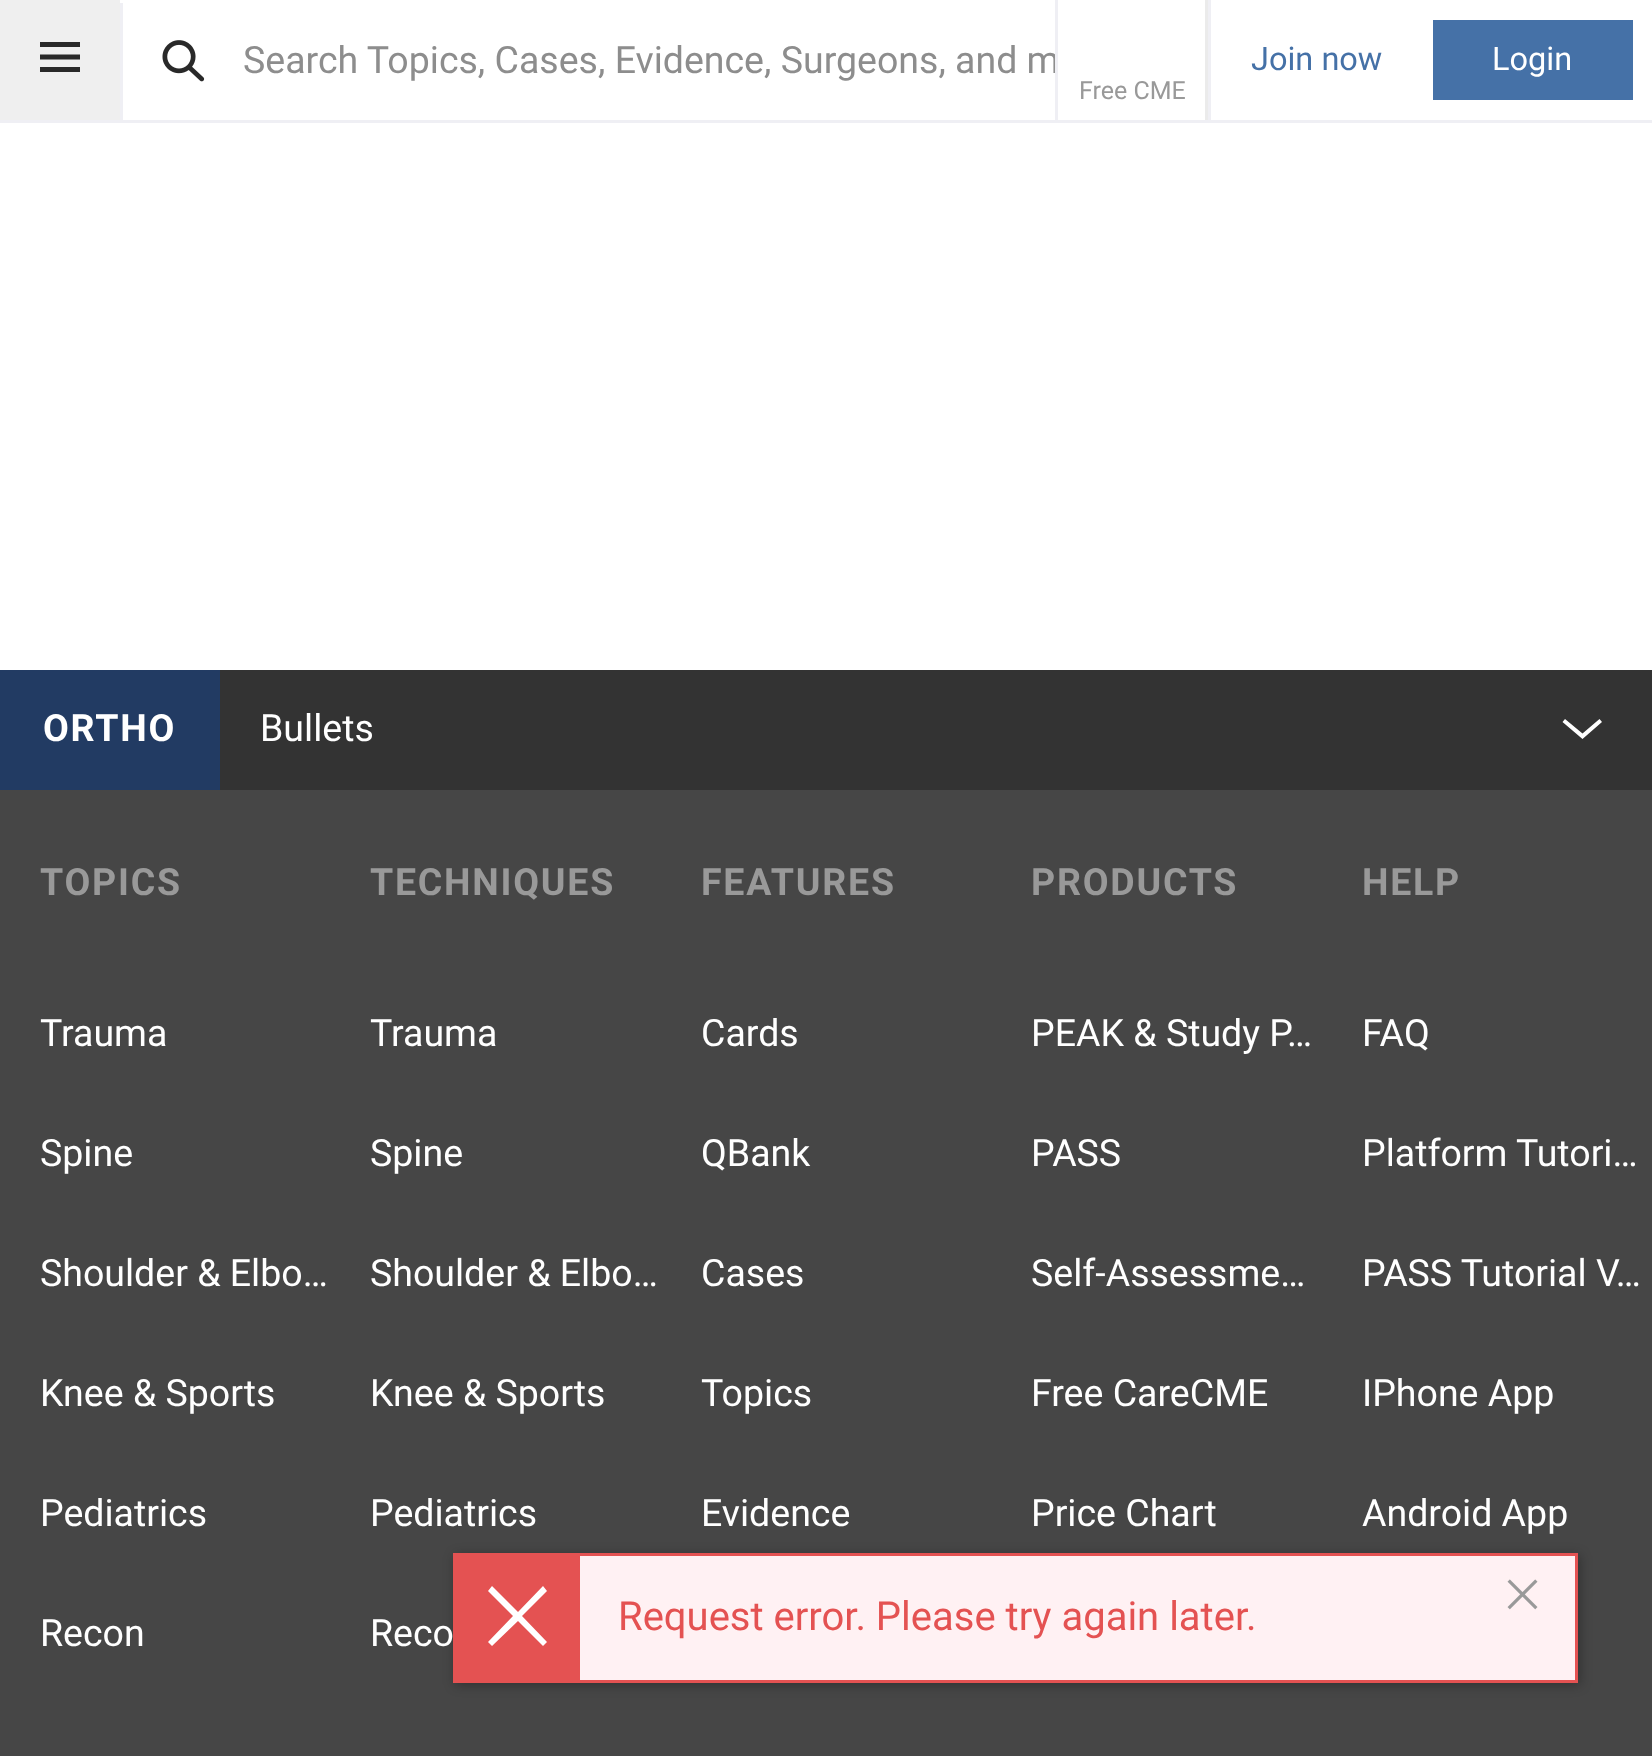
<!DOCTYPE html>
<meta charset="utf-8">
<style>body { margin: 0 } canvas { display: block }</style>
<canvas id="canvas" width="1652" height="1756"></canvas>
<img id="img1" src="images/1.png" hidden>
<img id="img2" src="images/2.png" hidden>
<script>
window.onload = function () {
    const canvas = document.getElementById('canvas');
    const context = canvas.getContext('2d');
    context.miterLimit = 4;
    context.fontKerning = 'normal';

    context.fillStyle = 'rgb(255, 255, 255)';
    context.fillRect(0, 0, 1652, 1756);
    context.fillStyle = 'rgb(239, 239, 244)';
    context.fillRect(0, 120, 1652, 3);
    context.fillStyle = 'rgb(239, 239, 239)';
    context.fillRect(0, 0, 120, 120);
    context.fillStyle = 'rgb(41, 41, 41)';
    context.beginPath();
    context.moveTo(40, 42);
    context.lineTo(80, 42);
    context.lineTo(80, 47);
    context.lineTo(40, 47);
    context.closePath();
    context.moveTo(40, 54.5);
    context.lineTo(80, 54.5);
    context.lineTo(80, 59.5);
    context.lineTo(40, 59.5);
    context.closePath();
    context.moveTo(40, 67);
    context.lineTo(80, 67);
    context.lineTo(80, 72);
    context.lineTo(40, 72);
    context.closePath();
    context.fill();
    context.fillStyle = 'rgb(239, 239, 244)';
    context.fillRect(120, 3, 3, 117);
    context.drawImage(document.getElementById('img1'), 162, 40, 43, 42);
    context.fillRect(1208, 0, 3, 120);
    context.fillStyle = 'rgb(69, 113, 167)';
    context.fillRect(1433, 20, 200, 80);
    context.fillStyle = 'rgb(239, 239, 244)';
    context.fillRect(1055, 0, 3, 120);
    context.fillStyle = 'rgb(235, 235, 235)';
    context.fillRect(1205, 0, 3, 120);
    context.fillStyle = 'rgb(70, 70, 70)';
    context.fillRect(0, 790, 1652, 966);
    context.fillStyle = 'rgb(51, 51, 51)';
    context.fillRect(220, 670, 1432, 120);
    context.fillStyle = 'rgb(34, 59, 99)';
    context.fillRect(0, 670, 220, 120);
    context.fillStyle = 'rgb(255, 255, 255)';
    context.beginPath();
    context.moveTo(1565, 719);
    context.lineTo(1562.5, 722);
    context.lineTo(1582.5, 739);
    context.lineTo(1602, 722);
    context.lineTo(1599.5, 719);
    context.lineTo(1582.5, 733.5);
    context.closePath();
    context.fill();
    context.fillStyle = 'rgba(0, 0, 0, 0.3)';
    context.filter = 'blur(6px)';
    context.beginPath();
    context.roundRect(455, 1555, 1125, 130, 2.5);
    context.fill();
    context.filter = 'none';
    context.fillStyle = 'rgb(255, 241, 243)';
    context.fillRect(580, 1556, 995, 124);
    context.strokeStyle = 'rgb(228, 82, 82)';
    context.lineWidth = 3;
    context.strokeRect(454.5, 1554.5, 1122, 127);
    context.fillStyle = 'rgb(228, 82, 82)';
    context.fillRect(456, 1556, 124, 124);
    context.fillStyle = 'rgb(255, 255, 255)';
    context.beginPath();
    context.moveTo(547, 1642);
    context.lineTo(543, 1646);
    context.lineTo(518, 1621);
    context.lineTo(492, 1646);
    context.lineTo(488, 1642);
    context.lineTo(513, 1616);
    context.lineTo(488, 1591);
    context.lineTo(492, 1586);
    context.lineTo(518, 1612);
    context.lineTo(543, 1586);
    context.lineTo(547, 1591);
    context.lineTo(522, 1616);
    context.closePath();
    context.fill();
    context.drawImage(document.getElementById('img2'), 1507, 1579, 31, 31);
    context.save();
    context.beginPath();
    context.rect(243, 38, 812, 45);
    context.clip();
    context.font = '37.5px Roboto';
    context.fillStyle = 'rgb(141, 141, 141)';
    context.fillText('Search Topics, Cases, Evidence, Surgeons, and m', 243, 73);
    context.restore();
    context.font = '32.5px Roboto';
    context.fillStyle = 'rgb(69, 113, 167)';
    context.fillText('Join now', 1251, 70);
    context.fillStyle = 'rgb(255, 255, 255)';
    context.fillText('Login', 1492, 70);
    context.font = '25px Roboto';
    context.fillStyle = 'rgb(153, 153, 153)';
    context.fillText('Free CME', 1079, 99);
    context.letterSpacing = '1.75px';
    context.font = 'bold 37.5px Roboto';
    context.fillStyle = 'rgb(255, 255, 255)';
    context.fillText('ORTHO', 43, 741);
    context.save();
    context.beginPath();
    context.rect(260, 713, 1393, 37);
    context.clip();
    context.letterSpacing = '0px';
    context.font = '37.5px Roboto';
    context.fillText('Bullets', 260, 741);
    context.restore();
    context.fillStyle = 'rgb(153, 153, 153)';
    context.fillText('TOPICS', 40, 895);
    context.letterSpacing = '0px';
    context.font = '37.5px Roboto';
    context.fillStyle = 'rgb(255, 255, 255)';
    context.fillText('Trauma', 40, 1046);
    context.fillText('Spine', 40, 1166);
    context.fillText('Shoulder & Elbo…', 40, 1286);
    context.fillText('Knee & Sports', 40, 1406);
    context.fillText('Pediatrics', 40, 1526);
    context.fillText('Recon', 40, 1646);
    context.letterSpacing = '1.75px';
    context.font = 'bold 37.5px Roboto';
    context.fillStyle = 'rgb(153, 153, 153)';
    context.fillText('TECHNIQUES', 370, 895);
    context.letterSpacing = '0px';
    context.font = '37.5px Roboto';
    context.fillStyle = 'rgb(255, 255, 255)';
    context.fillText('Trauma', 370, 1046);
    context.fillText('Spine', 370, 1166);
    context.fillText('Shoulder & Elbo…', 370, 1286);
    context.fillText('Knee & Sports', 370, 1406);
    context.fillText('Pediatrics', 370, 1526);
    context.fillText('Reco', 370, 1646);
    context.letterSpacing = '1.75px';
    context.font = 'bold 37.5px Roboto';
    context.fillStyle = 'rgb(153, 153, 153)';
    context.fillText('FEATURES', 701, 895);
    context.letterSpacing = '0px';
    context.font = '37.5px Roboto';
    context.fillStyle = 'rgb(255, 255, 255)';
    context.fillText('Cards', 701, 1046);
    context.fillText('QBank', 701, 1166);
    context.fillText('Cases', 701, 1286);
    context.fillText('Topics', 701, 1406);
    context.fillText('Evidence', 701, 1526);
    context.letterSpacing = '1.75px';
    context.font = 'bold 37.5px Roboto';
    context.fillStyle = 'rgb(153, 153, 153)';
    context.fillText('PRODUCTS', 1031, 895);
    context.letterSpacing = '0px';
    context.font = '37.5px Roboto';
    context.fillStyle = 'rgb(255, 255, 255)';
    context.fillText('PEAK & Study P…', 1031, 1046);
    context.fillText('PASS', 1031, 1166);
    context.fillText('Self-Assessme…', 1031, 1286);
    context.fillText('Free CareCME', 1031, 1406);
    context.fillText('Price Chart', 1031, 1526);
    context.letterSpacing = '1.75px';
    context.font = 'bold 37.5px Roboto';
    context.fillStyle = 'rgb(153, 153, 153)';
    context.fillText('HELP', 1362, 895);
    context.letterSpacing = '0px';
    context.font = '37.5px Roboto';
    context.fillStyle = 'rgb(255, 255, 255)';
    context.fillText('FAQ', 1362, 1046);
    context.fillText('Platform Tutori…', 1362, 1166);
    context.fillText('PASS Tutorial V…', 1362, 1286);
    context.fillText('IPhone App', 1362, 1406);
    context.fillText('Android App', 1362, 1526);
    context.font = '40px Roboto';
    context.fillStyle = 'rgb(228, 82, 82)';
    context.fillText('Request error. Please try again later.', 618, 1630);
};
</script>
